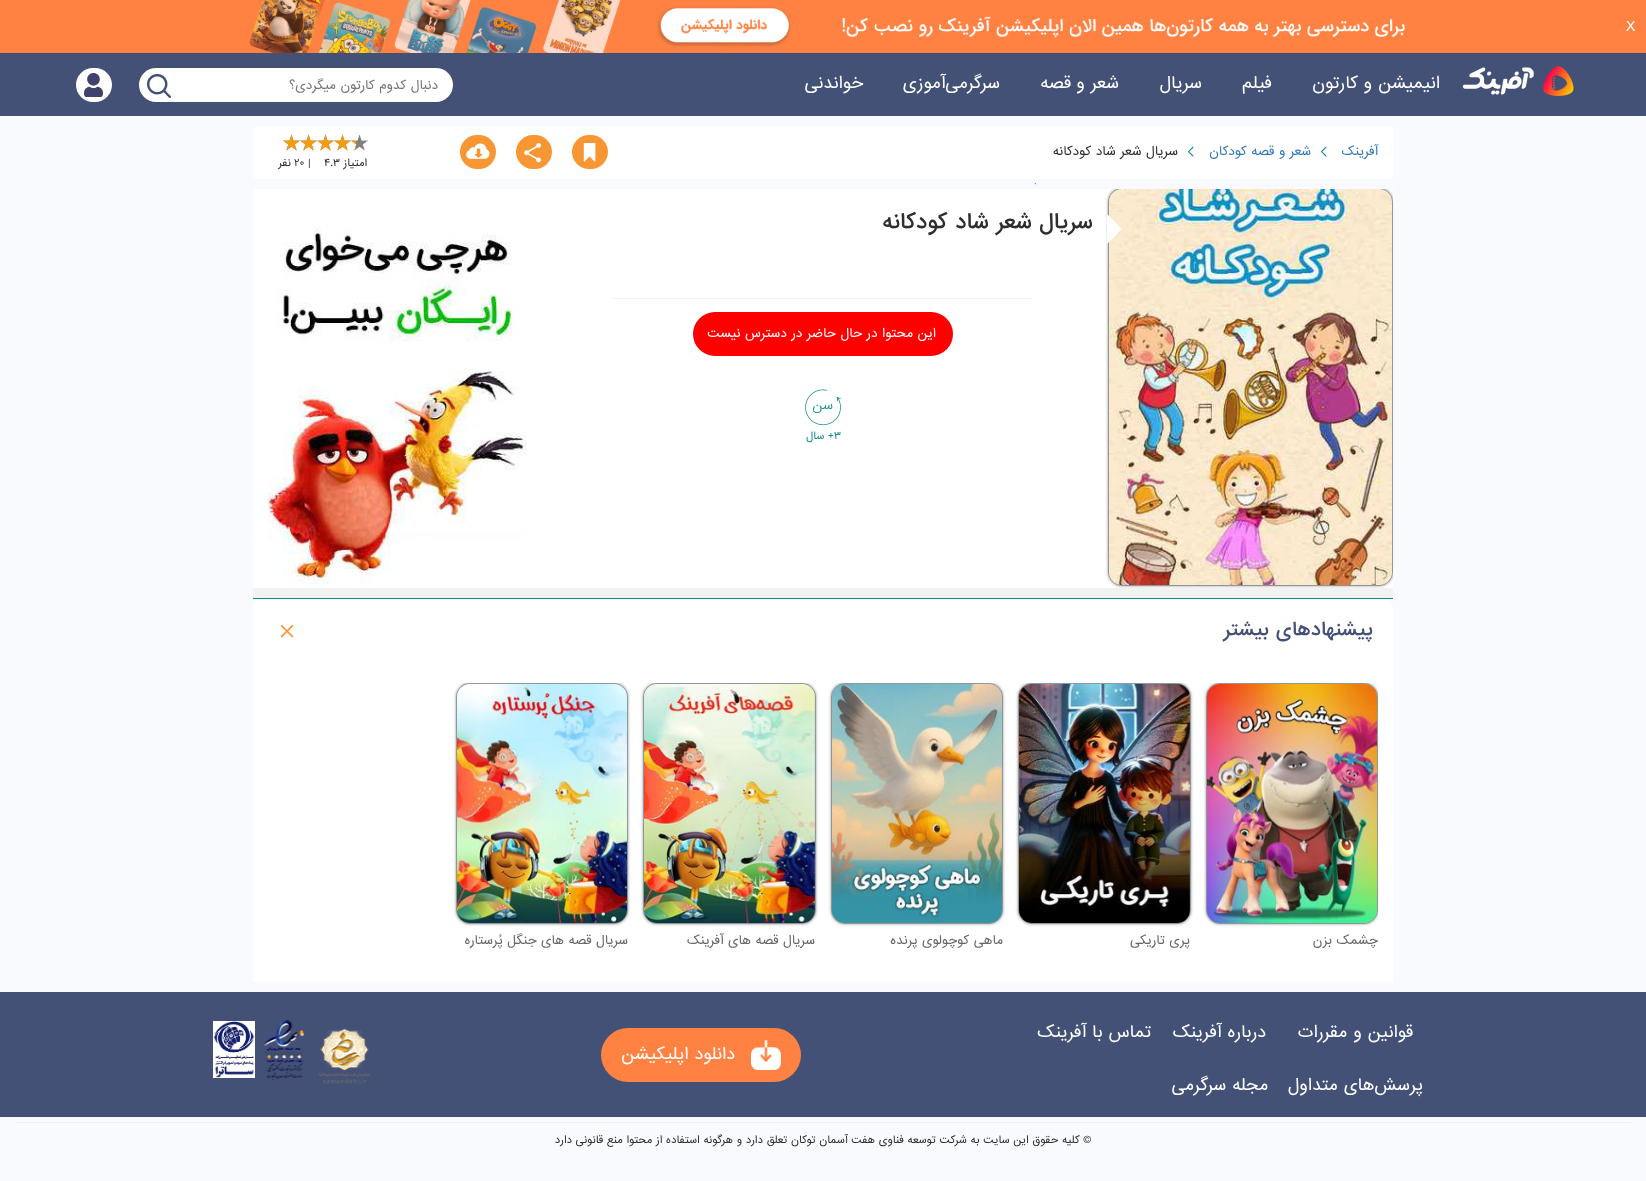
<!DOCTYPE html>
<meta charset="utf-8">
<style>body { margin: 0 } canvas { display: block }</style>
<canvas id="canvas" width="1646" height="1181"></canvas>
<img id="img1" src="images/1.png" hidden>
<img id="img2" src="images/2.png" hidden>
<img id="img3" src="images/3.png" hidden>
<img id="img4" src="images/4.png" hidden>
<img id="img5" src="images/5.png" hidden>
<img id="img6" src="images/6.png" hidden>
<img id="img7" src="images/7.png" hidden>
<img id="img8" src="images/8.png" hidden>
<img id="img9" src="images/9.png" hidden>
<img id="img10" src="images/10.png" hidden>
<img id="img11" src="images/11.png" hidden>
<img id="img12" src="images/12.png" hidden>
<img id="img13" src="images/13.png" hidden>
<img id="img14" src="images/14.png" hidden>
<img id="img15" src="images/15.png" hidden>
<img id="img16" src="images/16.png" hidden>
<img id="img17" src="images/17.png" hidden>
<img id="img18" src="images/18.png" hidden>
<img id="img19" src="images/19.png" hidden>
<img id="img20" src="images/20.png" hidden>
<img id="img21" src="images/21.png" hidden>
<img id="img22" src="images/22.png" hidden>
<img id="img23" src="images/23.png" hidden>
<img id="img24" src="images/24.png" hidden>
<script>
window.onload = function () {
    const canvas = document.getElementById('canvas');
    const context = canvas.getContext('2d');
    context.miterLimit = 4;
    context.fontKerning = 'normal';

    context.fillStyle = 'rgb(249, 250, 253)';
    context.fillRect(0, 0, 1646, 1181);
    context.drawImage(document.getElementById('img1'), 0, 0, 1646, 53);
    context.fillStyle = 'rgb(67, 81, 119)';
    context.fillRect(0, 53, 1646, 63);
    context.drawImage(document.getElementById('img2'), 1462, 66, 112, 30);
    context.fillStyle = 'rgb(255, 255, 255)';
    context.beginPath();
    context.roundRect(139, 68, 314, 34, 17);
    context.fill();
    context.drawImage(document.getElementById('img3'), 147, 74, 24, 24);
    context.beginPath();
    context.roundRect(76, 68, 36, 34, 17);
    context.fill();
    context.drawImage(document.getElementById('img4'), 84, 73, 19, 24);
    context.beginPath();
    context.roundRect(253, 126, 1140, 53, 5);
    context.fill();
    context.drawImage(document.getElementById('img5'), 1321, 146, 6, 11);
    context.drawImage(document.getElementById('img5'), 1188, 146, 6, 11);
    context.fillStyle = 'rgb(248, 150, 51)';
    context.beginPath();
    context.roundRect(572, 135, 36, 34, 17);
    context.fill();
    context.drawImage(document.getElementById('img6'), 583, 143, 13, 19);
    context.beginPath();
    context.roundRect(516, 135, 36, 34, 17);
    context.fill();
    context.drawImage(document.getElementById('img7'), 524, 143, 17, 20);
    context.beginPath();
    context.roundRect(460, 135, 36, 34, 17);
    context.fill();
    context.drawImage(document.getElementById('img8'), 466, 143, 24, 16);
    context.drawImage(document.getElementById('img9'), 351, 134, 17, 17);
    context.drawImage(document.getElementById('img9'), 334, 134, 17, 17);
    context.drawImage(document.getElementById('img9'), 317, 134, 17, 17);
    context.drawImage(document.getElementById('img9'), 300, 134, 17, 17);
    context.drawImage(document.getElementById('img9'), 283, 134, 17, 17);
    context.drawImage(document.getElementById('img10'), 351, 140, 5, 11);
    context.drawImage(document.getElementById('img11'), 334, 134, 17, 17);
    context.drawImage(document.getElementById('img11'), 317, 134, 17, 17);
    context.drawImage(document.getElementById('img11'), 300, 134, 17, 17);
    context.drawImage(document.getElementById('img11'), 283, 134, 17, 17);
    context.fillStyle = 'rgb(255, 255, 255)';
    context.fillRect(538, 189, 855, 399);
    context.fillStyle = 'rgb(242, 242, 242)';
    context.fillRect(253, 588, 1140, 10);
    context.save();
    context.beginPath();
    context.rect(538, 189, 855, 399);
    context.clip();
    context.fillStyle = 'rgba(0, 0, 0, 0.4)';
    context.filter = 'blur(1.5px)';
    context.beginPath();
    context.roundRect(1108, 188, 285, 398, 14);
    context.fill();
    context.filter = 'none';
    context.restore();
    context.save();
    context.beginPath();
    context.rect(538, 189, 855, 399);
    context.clip();
    context.beginPath();
    context.roundRect(1108.5, 188.5, 284, 397, 13.5);
    context.strokeStyle = 'rgb(141, 152, 152)';
    context.stroke();
    context.restore();
    context.drawImage(document.getElementById('img12'), 1109, 189, 283, 396);
    context.fillStyle = 'rgb(255, 255, 255)';
    context.beginPath();
    context.moveTo(1107, 244);
    context.lineTo(1107, 214);
    context.lineTo(1122, 229);
    context.closePath();
    context.fill();
    context.fillStyle = 'rgb(242, 242, 242)';
    context.fillRect(613, 298, 420, 1);
    context.fillStyle = 'rgb(255, 0, 0)';
    context.beginPath();
    context.roundRect(693, 312, 260, 44, 22);
    context.fill();
    context.drawImage(document.getElementById('img13'), 805, 389, 36, 37);
    context.drawImage(document.getElementById('img14'), 253, 189, 285, 399);
    context.fillStyle = 'rgb(15, 140, 138)';
    context.fillRect(253, 598, 1140, 1);
    context.fillStyle = 'rgb(255, 255, 255)';
    context.beginPath();
    context.roundRect(253, 599, 1140, 64, [10, 10, 0, 0]);
    context.fill();
    context.drawImage(document.getElementById('img15'), 280, 624, 14, 14);
    context.fillRect(253, 663, 1140, 319);
    context.save();
    context.beginPath();
    context.rect(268, 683, 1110, 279);
    context.clip();
    context.fillStyle = 'rgba(0, 0, 0, 0.4)';
    context.filter = 'blur(1.5px)';
    context.beginPath();
    context.roundRect(1206, 683, 172, 241, 14);
    context.fill();
    context.filter = 'none';
    context.restore();
    context.beginPath();
    context.roundRect(1206.5, 683.5, 171, 240, 13.5);
    context.strokeStyle = 'rgb(141, 152, 152)';
    context.stroke();
    context.drawImage(document.getElementById('img16'), 1207, 684, 170, 239);
    context.save();
    context.beginPath();
    context.rect(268, 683, 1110, 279);
    context.clip();
    context.fillStyle = 'rgba(0, 0, 0, 0.4)';
    context.filter = 'blur(1.5px)';
    context.beginPath();
    context.roundRect(1018, 683, 173, 241, 14);
    context.fill();
    context.filter = 'none';
    context.restore();
    context.beginPath();
    context.roundRect(1018.5, 683.5, 172, 240, 13.5);
    context.stroke();
    context.drawImage(document.getElementById('img17'), 1019, 684, 171, 239);
    context.save();
    context.beginPath();
    context.rect(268, 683, 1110, 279);
    context.clip();
    context.fillStyle = 'rgba(0, 0, 0, 0.4)';
    context.filter = 'blur(1.5px)';
    context.beginPath();
    context.roundRect(831, 683, 172, 241, 14);
    context.fill();
    context.filter = 'none';
    context.restore();
    context.beginPath();
    context.roundRect(831.5, 683.5, 171, 240, 13.5);
    context.stroke();
    context.drawImage(document.getElementById('img18'), 832, 684, 170, 239);
    context.save();
    context.beginPath();
    context.rect(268, 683, 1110, 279);
    context.clip();
    context.fillStyle = 'rgba(0, 0, 0, 0.4)';
    context.filter = 'blur(1.5px)';
    context.beginPath();
    context.roundRect(643, 683, 173, 241, 14);
    context.fill();
    context.filter = 'none';
    context.restore();
    context.beginPath();
    context.roundRect(643.5, 683.5, 172, 240, 13.5);
    context.stroke();
    context.drawImage(document.getElementById('img19'), 644, 684, 171, 239);
    context.save();
    context.beginPath();
    context.rect(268, 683, 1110, 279);
    context.clip();
    context.fillStyle = 'rgba(0, 0, 0, 0.4)';
    context.filter = 'blur(1.5px)';
    context.beginPath();
    context.roundRect(456, 683, 172, 241, 14);
    context.fill();
    context.filter = 'none';
    context.restore();
    context.beginPath();
    context.roundRect(456.5, 683.5, 171, 240, 13.5);
    context.stroke();
    context.drawImage(document.getElementById('img20'), 457, 684, 170, 239);
    context.fillStyle = 'rgb(67, 81, 119)';
    context.fillRect(0, 992, 1646, 125);
    context.fillStyle = 'rgb(255, 130, 67)';
    context.beginPath();
    context.roundRect(601, 1028, 200, 54, 27);
    context.fill();
    context.drawImage(document.getElementById('img21'), 751, 1040, 30, 30);
    context.drawImage(document.getElementById('img22'), 318, 1028, 53, 56);
    context.drawImage(document.getElementById('img23'), 264, 1020, 42, 60);
    context.drawImage(document.getElementById('img24'), 213, 1021, 42, 57);
    context.fillStyle = 'rgb(238, 238, 238)';
    context.fillRect(15, 1122, 1616, 1);
    context.font = '14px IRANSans';
    context.fillStyle = 'rgb(255, 255, 255)';
    context.fillText('X', 1626, 31);
    context.direction = 'rtl';
    context.font = '16px IRANSans';
    context.fillText('انیمیشن', 1440, 88);
    context.fillText('و', 1372, 88);
    context.fillText('کارتون', 1358, 88);
    context.fillText('فیلم', 1272, 88);
    context.fillText('سریال', 1202, 88);
    context.fillText('شعر و', 1119, 88);
    context.fillText('قصه', 1071, 88);
    context.fillText('سرگرمی‌آموزی', 1000, 88);
    context.fillText('خواندنی', 863, 88);
    context.font = '12px IRANSans';
    context.fillStyle = 'rgb(117, 117, 117)';
    context.fillText('دنبال کدوم کارتون میگردی؟', 438, 89);
    context.fillStyle = 'rgb(51, 122, 183)';
    context.fillText('آفرینک', 1378, 155);
    context.fillText('شعر و قصه کودکان', 1311, 155);
    context.fillStyle = 'rgb(46, 46, 46)';
    context.fillText('سریال شعر شاد کودکانه', 1178, 155);
    context.direction = 'ltr';
    context.font = '10px Liberation Serif';
    context.fillStyle = 'rgb(15, 140, 138)';
    context.fillText('.', 1034, 184);
    context.direction = 'rtl';
    context.font = '10px IRANSans';
    context.fillStyle = 'rgb(46, 46, 46)';
    context.fillText('امتیاز', 367, 166);
    context.direction = 'ltr';
    context.fillText('4.3', 324, 166);
    context.fillText('|', 308, 166);
    context.fillText('20', 294, 166);
    context.direction = 'rtl';
    context.fillText('نفر', 291, 166);
    context.font = '500 20px IRANSans';
    context.fillText('سریال شعر شاد کودکانه', 1093, 228);
    context.font = '12px IRANSans';
    context.fillStyle = 'rgb(255, 255, 255)';
    context.fillText('این محتوا در حال حاضر در دسترس نیست', 936, 337);
    context.direction = 'ltr';
    context.font = '10px IRANSans';
    context.fillStyle = 'rgb(15, 140, 138)';
    context.fillText('3', 834, 439);
    context.direction = 'rtl';
    context.fillText('+ سال', 834, 439);
    context.font = '500 18px IRANSans';
    context.fillStyle = 'rgb(67, 81, 119)';
    context.fillText('پیشنهادهای بیشتر', 1373, 635);
    context.font = '12px IRANSans';
    context.fillStyle = 'rgb(102, 102, 102)';
    context.fillText('چشمک بزن', 1378, 944);
    context.fillText('پری تاریکی', 1190, 944);
    context.fillText('ماهی کوچولوی پرنده', 1003, 944);
    context.fillText('سریال قصه های آفرینک', 815, 944);
    context.fillText('سریال قصه های جنگل پُرستاره', 628, 944);
    context.font = '16px IRANSans';
    context.fillStyle = 'rgb(255, 255, 255)';
    context.fillText('قوانین و مقررات', 1413, 1037);
    context.fillText('درباره آفرینک', 1266, 1037);
    context.fillText('تماس با آفرینک', 1151, 1037);
    context.fillText('پرسش‌های متداول', 1423, 1090);
    context.fillText('مجله سرگرمی', 1268, 1090);
    context.fillText('دانلود اپلیکیشن', 735, 1059);
    context.font = '10px IRANSans';
    context.fillStyle = 'rgb(46, 46, 46)';
    context.fillText('© کلیه حقوق این سایت به شرکت توسعه فناوی هفت آسمان توکان تعلق دارد و هرگونه استفاده از محتوا منع قانونی', 1091, 1143);
    context.fillText('دارد', 572, 1143);
};
</script>
